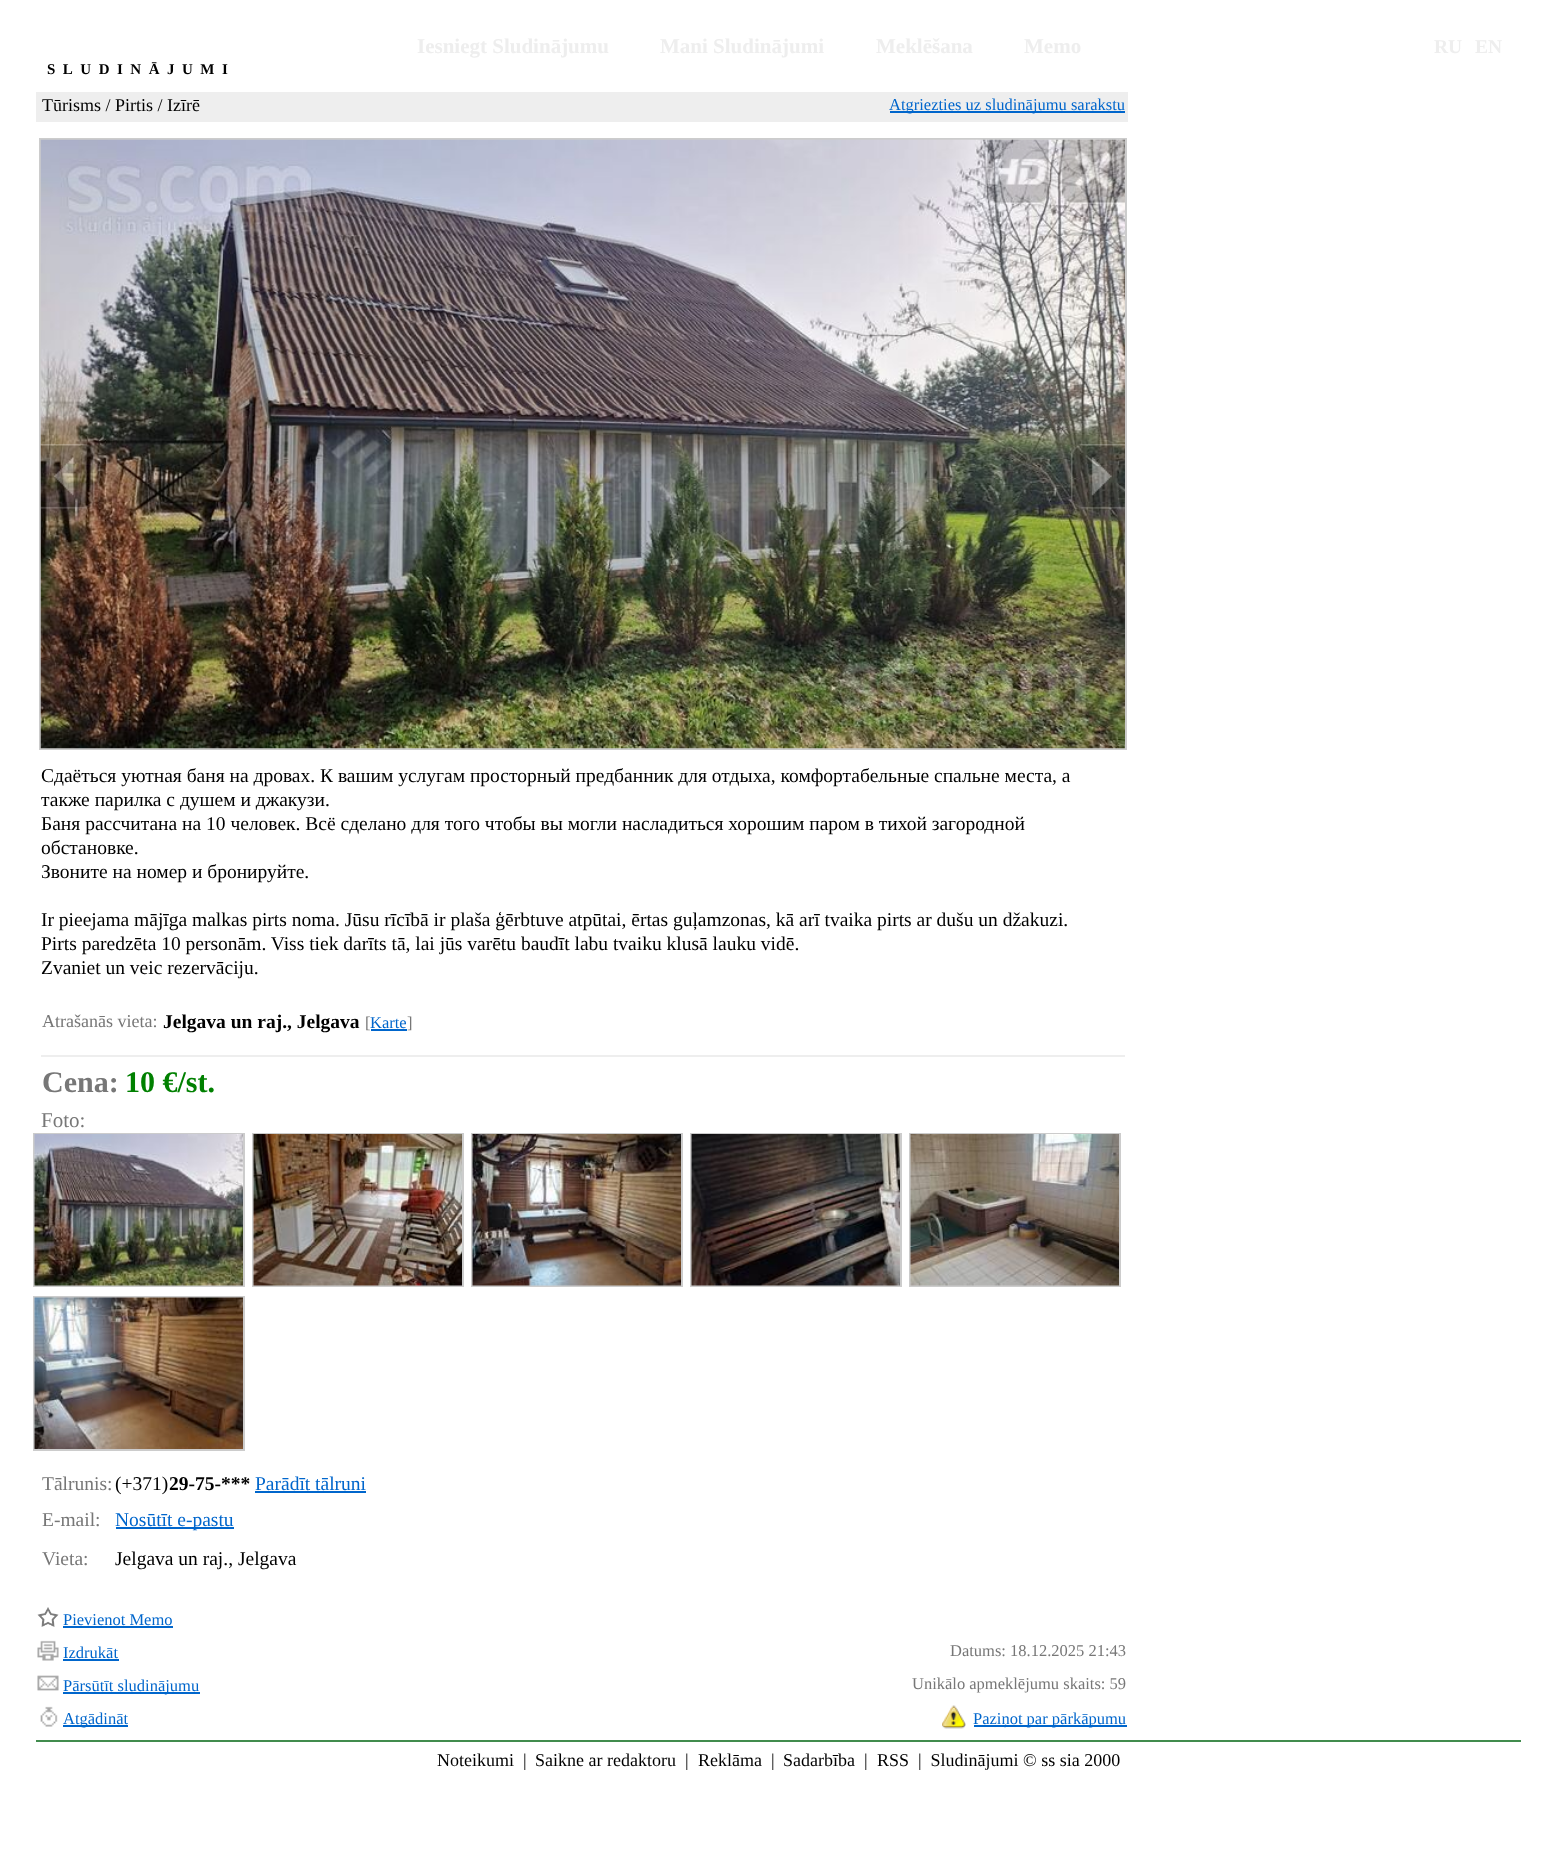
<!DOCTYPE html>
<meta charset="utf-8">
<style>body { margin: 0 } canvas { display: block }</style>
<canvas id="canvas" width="1556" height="1869"></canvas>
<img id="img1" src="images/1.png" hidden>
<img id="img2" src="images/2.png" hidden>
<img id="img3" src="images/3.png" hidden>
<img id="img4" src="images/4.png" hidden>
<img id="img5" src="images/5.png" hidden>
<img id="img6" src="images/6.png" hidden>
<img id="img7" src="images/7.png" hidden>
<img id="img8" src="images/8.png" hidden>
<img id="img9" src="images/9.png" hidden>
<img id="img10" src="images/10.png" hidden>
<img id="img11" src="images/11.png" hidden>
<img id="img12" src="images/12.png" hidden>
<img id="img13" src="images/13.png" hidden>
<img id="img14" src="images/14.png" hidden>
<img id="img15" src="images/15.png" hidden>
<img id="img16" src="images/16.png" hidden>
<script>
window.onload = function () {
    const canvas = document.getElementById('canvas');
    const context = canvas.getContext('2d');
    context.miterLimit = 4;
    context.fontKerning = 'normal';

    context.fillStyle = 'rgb(255, 255, 255)';
    context.fillRect(0, 0, 1556, 1869);
    context.fillStyle = 'rgb(238, 238, 238)';
    context.fillRect(36, 92, 1092, 30);
    context.fillStyle = 'rgb(0, 102, 204)';
    context.fillRect(890, 111, 235, 2);
    context.strokeStyle = 'rgb(204, 204, 204)';
    context.lineWidth = 2;
    context.strokeRect(40, 139, 1086, 610);
    context.drawImage(document.getElementById('img1'), 40, 139, 1085, 610);
    context.drawImage(document.getElementById('img2'), 985, 139, 65, 65);
    context.drawImage(document.getElementById('img3'), 1060, 139, 65, 65);
    context.drawImage(document.getElementById('img4'), 40, 444, 55, 65);
    context.drawImage(document.getElementById('img5'), 1071, 444, 54, 65);
    context.fillRect(371, 1029, 36, 2);
    context.fillStyle = 'rgb(238, 238, 238)';
    context.fillRect(41, 1055, 1084, 2);
    context.strokeRect(34, 1134, 210, 152);
    context.drawImage(document.getElementById('img6'), 34, 1134, 209, 152);
    context.strokeRect(253, 1134, 210, 152);
    context.drawImage(document.getElementById('img7'), 253, 1134, 209, 152);
    context.strokeRect(472, 1134, 210, 152);
    context.drawImage(document.getElementById('img8'), 472, 1134, 209, 152);
    context.strokeRect(691, 1134, 210, 152);
    context.drawImage(document.getElementById('img9'), 691, 1134, 209, 152);
    context.strokeRect(910, 1134, 210, 152);
    context.drawImage(document.getElementById('img10'), 910, 1134, 209, 152);
    context.strokeRect(34, 1297, 210, 153);
    context.drawImage(document.getElementById('img11'), 34, 1297, 209, 152);
    context.fillStyle = 'rgb(0, 102, 204)';
    context.fillRect(255, 1491, 111, 2);
    context.fillRect(116, 1527, 118, 2);
    context.drawImage(document.getElementById('img12'), 37, 1607, 22, 20);
    context.fillRect(63, 1626, 110, 2);
    context.drawImage(document.getElementById('img13'), 37, 1640, 22, 21);
    context.fillRect(63, 1659, 56, 2);
    context.drawImage(document.getElementById('img14'), 37, 1675, 22, 16);
    context.fillRect(63, 1692, 137, 2);
    context.drawImage(document.getElementById('img15'), 40, 1706, 18, 21);
    context.fillRect(63, 1725, 65, 2);
    context.drawImage(document.getElementById('img16'), 942, 1705, 24, 24);
    context.fillRect(974, 1725, 153, 2);
    context.fillStyle = 'rgb(65, 140, 78)';
    context.fillRect(36, 1740, 1485, 2);
    context.font = 'bold 21px Liberation Serif';
    context.fillStyle = 'rgb(238, 238, 238)';
    context.fillText('Iesniegt Sludinājumu', 417, 53);
    context.fillText('Mani Sludinājumi', 660, 53);
    context.fillText('Meklēšana', 876, 53);
    context.fillText('Memo', 1024, 53);
    context.font = 'bold 19.5px Liberation Serif';
    context.fillText('RU', 1434, 53);
    context.fillText('EN', 1475, 53);
    context.letterSpacing = '7.5px';
    context.font = 'bold 15px Liberation Serif';
    context.fillStyle = 'rgb(0, 0, 0)';
    context.fillText('SLUDINĀJUMI', 47, 74);
    context.letterSpacing = '0px';
    context.font = '18px Liberation Serif';
    context.fillText('Tūrisms / Pirtis / Izīrē', 42, 111);
    context.font = '16.5px Liberation Serif';
    context.fillStyle = 'rgb(0, 102, 204)';
    context.fillText('Atgriezties uz sludinājumu sarakstu', 889, 110);
    context.font = '19.5px Liberation Serif';
    context.fillStyle = 'rgb(0, 0, 0)';
    context.fillText('Сдаёться уютная баня на дровах. К вашим услугам просторный предбанник для отдыха, комфортабельные спальне места, а', 41, 782);
    context.fillText('также парилка с душем и джакузи.', 41, 806);
    context.fillText('Баня рассчитана на 10 человек. Всё сделано для того чтобы вы могли насладиться хорошим паром в тихой загородной', 41, 830);
    context.fillText('обстановке.', 41, 854);
    context.fillText('Звоните на номер и бронируйте.', 41, 878);
    context.fillText('Ir pieejama mājīga malkas pirts noma. Jūsu rīcībā ir plaša ģērbtuve atpūtai, ērtas guļamzonas, kā arī tvaika pirts ar dušu un džakuzi.', 41, 926);
    context.fillText('Pirts paredzēta 10 personām. Viss tiek darīts tā, lai jūs varētu baudīt labu tvaiku klusā lauku vidē.', 41, 950);
    context.fillText('Zvaniet un veic rezervāciju.', 41, 974);
    context.font = '18px Liberation Serif';
    context.fillStyle = 'rgb(119, 119, 119)';
    context.fillText('Atrašanās vieta:', 42, 1027);
    context.font = 'bold 19.5px Liberation Serif';
    context.fillStyle = 'rgb(0, 0, 0)';
    context.fillText('Jelgava un raj., Jelgava', 163, 1028);
    context.font = '16.5px Liberation Serif';
    context.fillStyle = 'rgb(119, 119, 119)';
    context.fillText('[', 365, 1028);
    context.fillStyle = 'rgb(0, 102, 204)';
    context.fillText('Karte', 370, 1028);
    context.fillStyle = 'rgb(119, 119, 119)';
    context.fillText(']', 407, 1028);
    context.font = 'bold 30px Liberation Serif';
    context.fillText('Cena:', 42, 1092);
    context.fillStyle = 'rgb(0, 128, 0)';
    context.fillText('10 €/st.', 125, 1092);
    context.font = '21px Liberation Serif';
    context.fillStyle = 'rgb(119, 119, 119)';
    context.fillText('Foto:', 41, 1127);
    context.font = '19.5px Liberation Serif';
    context.fillText('Tālrunis:', 42, 1490);
    context.fillStyle = 'rgb(0, 0, 0)';
    context.fillText('(+371)', 115, 1490);
    context.font = 'bold 19.5px Liberation Serif';
    context.fillText('29-75-***', 169, 1490);
    context.font = '19.5px Liberation Serif';
    context.fillStyle = 'rgb(0, 102, 204)';
    context.fillText('Parādīt tālruni', 255, 1490);
    context.fillStyle = 'rgb(119, 119, 119)';
    context.fillText('E-mail:', 42, 1526);
    context.fillStyle = 'rgb(0, 102, 204)';
    context.fillText('Nosūtīt e-pastu', 115, 1526);
    context.fillStyle = 'rgb(119, 119, 119)';
    context.fillText('Vieta:', 42, 1565);
    context.fillStyle = 'rgb(0, 0, 0)';
    context.fillText('Jelgava un raj., Jelgava', 115, 1565);
    context.font = '16.5px Liberation Serif';
    context.fillStyle = 'rgb(0, 102, 204)';
    context.fillText('Pievienot Memo', 63, 1625);
    context.fillText('Izdrukāt', 63, 1658);
    context.fillStyle = 'rgb(119, 119, 119)';
    context.fillText('Datums: 18.12.2025 21:43', 950, 1656);
    context.fillStyle = 'rgb(0, 102, 204)';
    context.fillText('Pārsūtīt sludinājumu', 63, 1691);
    context.fillStyle = 'rgb(119, 119, 119)';
    context.fillText('Unikālo apmeklējumu skaits: 59', 912, 1689);
    context.fillStyle = 'rgb(0, 102, 204)';
    context.fillText('Atgādināt', 63, 1724);
    context.fillText('Paziņot par pārkāpumu', 973, 1724);
    context.font = '18px Liberation Serif';
    context.fillStyle = 'rgb(0, 0, 0)';
    context.fillText('Noteikumi', 437, 1766);
    context.fillText('|', 523, 1766);
    context.fillText('Saikne ar redaktoru', 535, 1766);
    context.fillText('|', 685, 1766);
    context.fillText('Reklāma', 698, 1766);
    context.fillText('|', 771, 1766);
    context.fillText('Sadarbība', 783, 1766);
    context.fillText('|', 864, 1766);
    context.fillText('RSS', 877, 1766);
    context.fillText('|  Sludinājumi © ss sia 2000', 918, 1766);
};
</script>
